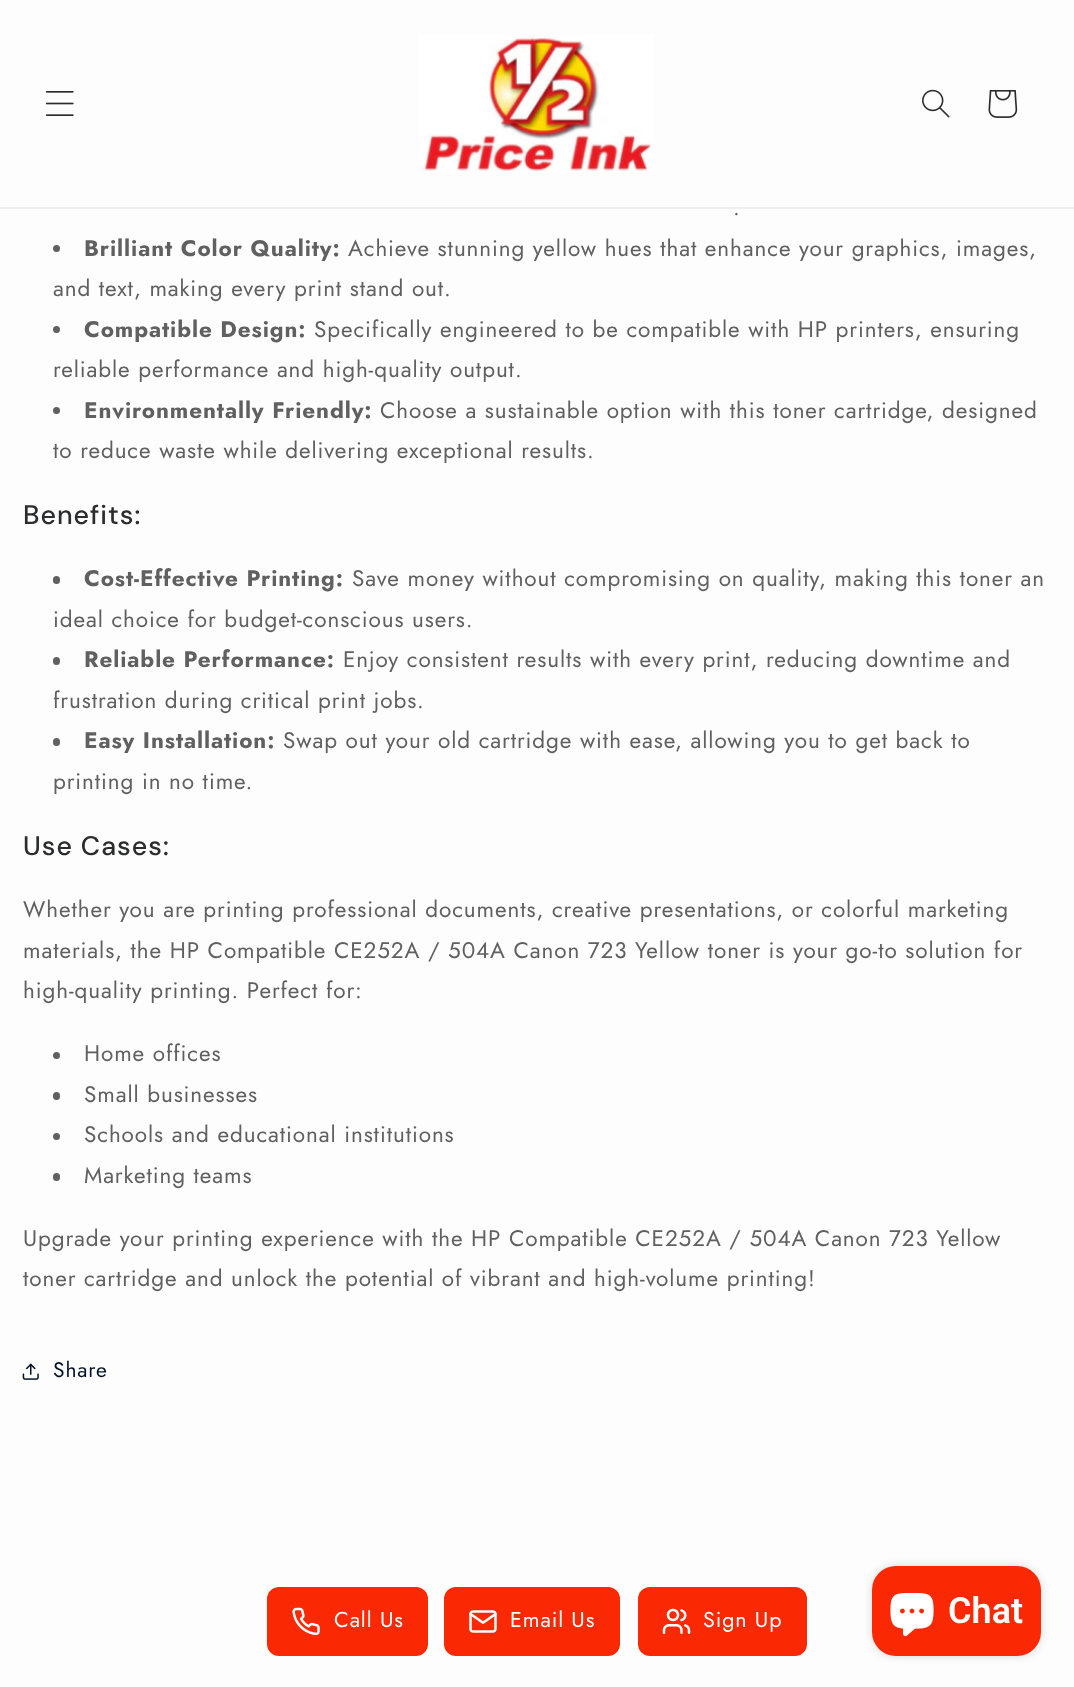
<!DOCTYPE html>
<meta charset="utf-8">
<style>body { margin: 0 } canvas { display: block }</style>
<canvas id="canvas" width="1074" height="1687"></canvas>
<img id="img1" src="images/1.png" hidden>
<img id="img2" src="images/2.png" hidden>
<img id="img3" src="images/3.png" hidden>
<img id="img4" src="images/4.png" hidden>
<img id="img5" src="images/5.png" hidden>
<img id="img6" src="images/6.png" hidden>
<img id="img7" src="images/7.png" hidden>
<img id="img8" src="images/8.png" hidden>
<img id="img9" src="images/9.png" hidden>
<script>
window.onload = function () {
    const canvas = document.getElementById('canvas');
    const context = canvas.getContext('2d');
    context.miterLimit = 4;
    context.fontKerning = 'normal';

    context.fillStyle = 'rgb(253, 253, 253)';
    context.fillRect(0, 0, 1074, 1687);
    context.fillStyle = 'rgb(238, 238, 238)';
    context.fillRect(0, 207, 1074, 2);
    context.drawImage(document.getElementById('img1'), 45, 91, 29, 25);
    context.drawImage(document.getElementById('img2'), 418, 35, 236, 138);
    context.drawImage(document.getElementById('img3'), 922, 89, 28, 29);
    context.drawImage(document.getElementById('img4'), 988, 90, 30, 28);
    context.fillStyle = 'rgb(96, 96, 97)';
    context.beginPath();
    context.arc(56.5, 248.5, 3.5, 0, 2 * Math.PI);
    context.fill();
    context.beginPath();
    context.arc(56.5, 329.5, 3.5, 0, 2 * Math.PI);
    context.fill();
    context.beginPath();
    context.arc(56.5, 410.5, 3.5, 0, 2 * Math.PI);
    context.fill();
    context.beginPath();
    context.roundRect(53, 576, 7, 8, 3.5);
    context.fill();
    context.beginPath();
    context.roundRect(53, 657, 7, 8, 3.5);
    context.fill();
    context.beginPath();
    context.roundRect(53, 738, 7, 8, 3.5);
    context.fill();
    context.beginPath();
    context.arc(56.5, 1055.5, 3.5, 0, 2 * Math.PI);
    context.fill();
    context.beginPath();
    context.roundRect(53, 1092, 7, 8, 3.5);
    context.fill();
    context.beginPath();
    context.arc(56.5, 1136.5, 3.5, 0, 2 * Math.PI);
    context.fill();
    context.beginPath();
    context.roundRect(53, 1173, 7, 8, 3.5);
    context.fill();
    context.drawImage(document.getElementById('img5'), 22, 1363, 17, 17);
    context.fillStyle = 'rgb(250, 40, 3)';
    context.beginPath();
    context.roundRect(267, 1587, 161, 69, 12);
    context.fill();
    context.drawImage(document.getElementById('img6'), 292, 1607, 28, 29);
    context.beginPath();
    context.roundRect(444, 1587, 176, 69, 12);
    context.fill();
    context.drawImage(document.getElementById('img7'), 469, 1610, 28, 23);
    context.beginPath();
    context.roundRect(638, 1587, 169, 69, 12);
    context.fill();
    context.drawImage(document.getElementById('img8'), 662, 1608, 29, 26);
    context.fillStyle = 'rgba(0, 0, 0, 0.15)';
    context.filter = 'blur(4px)';
    context.beginPath();
    context.roundRect(872, 1566, 169, 90, 24);
    context.fill();
    context.filter = 'none';
    context.fillStyle = 'rgb(250, 40, 3)';
    context.beginPath();
    context.roundRect(872, 1566, 169, 90, 24);
    context.fill();
    context.drawImage(document.getElementById('img9'), 890, 1593, 44, 44);
    context.letterSpacing = '0.9px';
    context.font = '22.5px Jost';
    context.fillStyle = 'rgb(96, 96, 97)';
    context.fillText('.', 733, 215);
    context.font = 'bold 22.5px Jost';
    context.fillText('Brilliant Color Quality:', 84, 256);
    context.font = '22.5px Jost';
    context.fillText('Achieve stunning yellow hues that enhance your graphics, images,', 348, 256);
    context.fillText('and text, making every print stand out.', 53, 296);
    context.font = 'bold 22.5px Jost';
    context.fillText('Compatible Design:', 84, 337);
    context.font = '22.5px Jost';
    context.fillText('Specifically engineered to be compatible with HP printers, ensuring', 314, 337);
    context.fillText('reliable performance and high-quality output.', 53, 377);
    context.font = 'bold 22.5px Jost';
    context.fillText('Environmentally Friendly:', 84, 418);
    context.font = '22.5px Jost';
    context.fillText('Choose a sustainable option with this toner cartridge, designed', 380, 418);
    context.fillText('to reduce waste while delivering exceptional results.', 53, 458);
    context.letterSpacing = '1px';
    context.font = '500 26.75px DM Sans';
    context.fillStyle = 'rgb(43, 44, 45)';
    context.fillText('Benefits:', 23, 524);
    context.letterSpacing = '0.9px';
    context.font = 'bold 22.5px Jost';
    context.fillStyle = 'rgb(96, 96, 97)';
    context.fillText('Cost-Effective Printing:', 84, 586);
    context.font = '22.5px Jost';
    context.fillText('Save money without compromising on quality, making this toner an', 352, 586);
    context.fillText('ideal choice for budget-conscious users.', 53, 627);
    context.font = 'bold 22.5px Jost';
    context.fillText('Reliable Performance:', 84, 667);
    context.font = '22.5px Jost';
    context.fillText('Enjoy consistent results with every print, reducing downtime and', 343, 667);
    context.fillText('frustration during critical print jobs.', 53, 708);
    context.font = 'bold 22.5px Jost';
    context.fillText('Easy Installation:', 84, 748);
    context.font = '22.5px Jost';
    context.fillText('Swap out your old cartridge with ease, allowing you to get back to', 283, 748);
    context.fillText('printing in no time.', 53, 789);
    context.letterSpacing = '1px';
    context.font = '500 26.75px DM Sans';
    context.fillStyle = 'rgb(43, 44, 45)';
    context.fillText('Use Cases:', 23, 855);
    context.letterSpacing = '0.9px';
    context.font = '22.5px Jost';
    context.fillStyle = 'rgb(96, 96, 97)';
    context.fillText('Whether you are printing professional documents, creative presentations, or colorful marketing', 23, 917);
    context.fillText('materials, the HP Compatible CE252A / 504A Canon 723 Yellow toner is your go-to solution for', 23, 958);
    context.fillText('high-quality printing. Perfect for:', 23, 998);
    context.fillText('Home offices', 84, 1061);
    context.fillText('Small businesses', 84, 1102);
    context.fillText('Schools and educational institutions', 84, 1142);
    context.fillText('Marketing teams', 84, 1183);
    context.fillText('Upgrade your printing experience with the HP Compatible CE252A / 504A Canon 723 Yellow', 23, 1246);
    context.fillText('toner cartridge and unlock the potential of vibrant and high-volume printing!', 23, 1286);
    context.font = '21px Jost';
    context.fillStyle = 'rgb(0, 17, 40)';
    context.fillText('Share', 53, 1377);
    context.font = '21.5px Jost';
    context.fillStyle = 'rgb(255, 255, 255)';
    context.fillText('Call Us', 334, 1627);
    context.fillText('Email Us', 510, 1627);
    context.fillText('Sign Up', 703, 1627);
    context.letterSpacing = '0px';
    context.font = '600 36px Roboto';
    context.fillText('Chat', 948, 1623);
};
</script>
